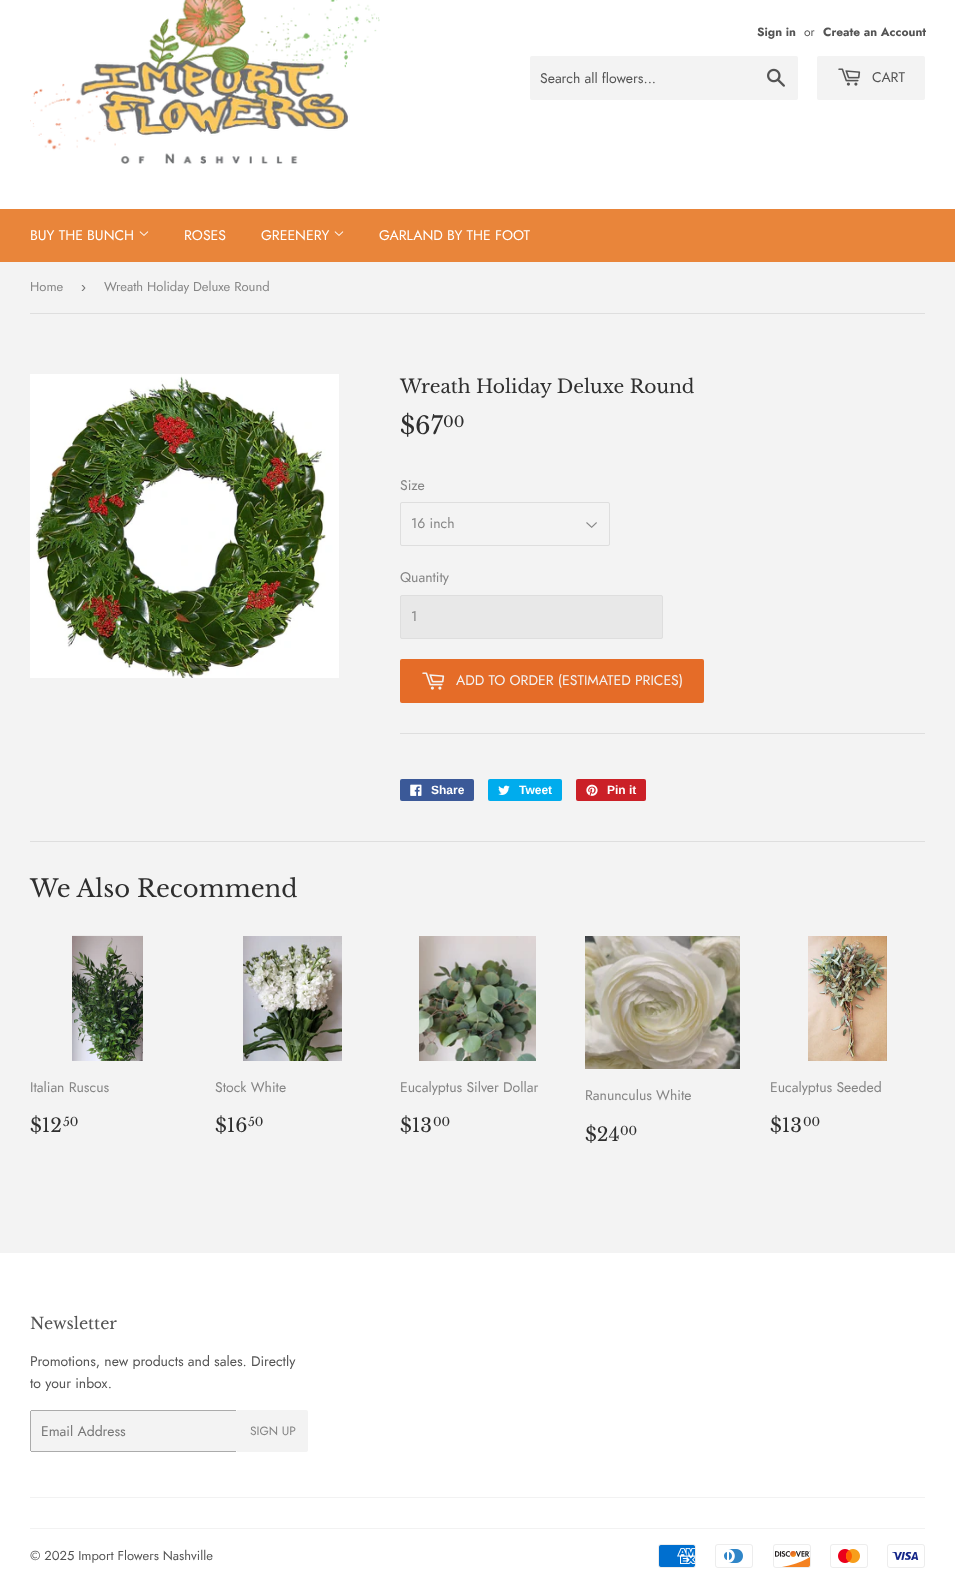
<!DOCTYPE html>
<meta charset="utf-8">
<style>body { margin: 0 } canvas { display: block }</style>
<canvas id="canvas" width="955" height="1588"></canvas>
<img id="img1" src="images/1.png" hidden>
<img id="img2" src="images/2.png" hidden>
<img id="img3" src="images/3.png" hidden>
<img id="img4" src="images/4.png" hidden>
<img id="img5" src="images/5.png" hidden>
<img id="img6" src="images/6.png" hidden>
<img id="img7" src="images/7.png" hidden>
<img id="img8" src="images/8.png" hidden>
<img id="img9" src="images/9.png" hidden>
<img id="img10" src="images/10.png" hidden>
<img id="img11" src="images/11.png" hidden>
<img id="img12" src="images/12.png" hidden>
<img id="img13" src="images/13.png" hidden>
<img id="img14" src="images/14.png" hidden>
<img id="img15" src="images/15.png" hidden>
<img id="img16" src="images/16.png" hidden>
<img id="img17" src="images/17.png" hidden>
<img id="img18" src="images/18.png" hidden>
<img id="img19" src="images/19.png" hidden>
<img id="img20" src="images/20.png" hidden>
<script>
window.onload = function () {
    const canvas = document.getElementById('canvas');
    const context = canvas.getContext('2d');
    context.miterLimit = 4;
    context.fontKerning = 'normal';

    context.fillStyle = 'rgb(243, 243, 243)';
    context.fillRect(0, 0, 955, 1588);
    context.fillStyle = 'rgb(255, 255, 255)';
    context.fillRect(0, 0, 955, 209);
    context.drawImage(document.getElementById('img1'), 30, 0, 350, 164);
    context.fillStyle = 'rgb(243, 243, 243)';
    context.beginPath();
    context.roundRect(530, 56, 268, 44, 2);
    context.fill();
    context.drawImage(document.getElementById('img2'), 767, 68, 18, 19);
    context.beginPath();
    context.roundRect(817, 56, 108, 44, 2);
    context.fill();
    context.drawImage(document.getElementById('img3'), 838, 68, 23, 18);
    context.fillStyle = 'rgb(233, 133, 58)';
    context.fillRect(0, 209, 955, 53);
    context.drawImage(document.getElementById('img4'), 139, 231, 10, 5);
    context.drawImage(document.getElementById('img4'), 334, 231, 10, 5);
    context.fillStyle = 'rgb(222, 222, 222)';
    context.fillRect(30, 313, 895, 1);
    context.drawImage(document.getElementById('img5'), 30, 374, 309, 304);
    context.drawImage(document.getElementById('img6'), 586, 522, 11, 6);
    context.beginPath();
    context.roundRect(400.5, 502.5, 209, 43, 1.5);
    context.strokeStyle = 'rgb(222, 222, 222)';
    context.stroke();
    context.fillStyle = 'rgb(232, 232, 232)';
    context.beginPath();
    context.roundRect(400.5, 595.5, 262, 43, 1.5);
    context.fill();
    context.stroke();
    context.fillStyle = 'rgb(229, 108, 40)';
    context.beginPath();
    context.roundRect(400, 659, 304, 44, 2);
    context.fill();
    context.drawImage(document.getElementById('img7'), 422, 672, 23, 18);
    context.fillStyle = 'rgb(222, 222, 222)';
    context.fillRect(400, 733, 525, 1);
    context.fillStyle = 'rgb(59, 89, 152)';
    context.beginPath();
    context.roundRect(400, 779, 74, 22, 2);
    context.fill();
    context.drawImage(document.getElementById('img8'), 410, 784, 12, 12);
    context.fillStyle = 'rgb(0, 172, 237)';
    context.beginPath();
    context.roundRect(488, 779, 74, 22, 2);
    context.fill();
    context.drawImage(document.getElementById('img9'), 498, 785, 12, 10);
    context.fillStyle = 'rgb(203, 32, 39)';
    context.beginPath();
    context.roundRect(576, 779, 70, 22, 2);
    context.fill();
    context.drawImage(document.getElementById('img10'), 586, 784, 12, 12);
    context.fillStyle = 'rgb(222, 222, 222)';
    context.fillRect(30, 841, 895, 1);
    context.drawImage(document.getElementById('img11'), 72, 935, 71, 126);
    context.drawImage(document.getElementById('img12'), 243, 936, 99, 125);
    context.drawImage(document.getElementById('img13'), 419, 936, 117, 125);
    context.drawImage(document.getElementById('img14'), 585, 936, 155, 133);
    context.drawImage(document.getElementById('img15'), 808, 936, 79, 125);
    context.fillStyle = 'rgb(255, 255, 255)';
    context.fillRect(0, 1253, 955, 335);
    context.fillStyle = 'rgb(243, 243, 243)';
    context.beginPath();
    context.roundRect(30, 1410, 207, 42, 2);
    context.fill();
    context.fillStyle = 'rgb(171, 171, 171)';
    context.fillRect(31, 1410, 205, 1);
    context.fillRect(31, 1451, 205, 1);
    context.fillRect(30, 1411, 1, 40);
    context.fillStyle = 'rgb(243, 243, 243)';
    context.beginPath();
    context.roundRect(237, 1410, 71, 42, [0, 2, 2, 0]);
    context.fill();
    context.fillStyle = 'rgb(242, 242, 242)';
    context.fillRect(30, 1497, 895, 1);
    context.fillRect(30, 1528, 895, 1);
    context.drawImage(document.getElementById('img16'), 658, 1544, 38, 24);
    context.drawImage(document.getElementById('img17'), 715, 1544, 38, 24);
    context.drawImage(document.getElementById('img18'), 773, 1544, 38, 24);
    context.drawImage(document.getElementById('img19'), 830, 1544, 38, 24);
    context.drawImage(document.getElementById('img20'), 887, 1544, 38, 24);
    context.font = 'bold 12px Jost';
    context.fillStyle = 'rgb(84, 84, 84)';
    context.fillText('Sign in', 757, 36);
    context.font = '12px Jost';
    context.fillText('or', 804, 36);
    context.font = 'bold 12px Jost';
    context.fillText('Create an Account', 823, 36);
    context.font = '14px Jost';
    context.fillText('Search all flowers...', 540, 83);
    context.fillText('CART', 872, 82);
    context.fillStyle = 'rgb(255, 255, 255)';
    context.fillText('BUY THE BUNCH', 30, 240);
    context.fillText('ROSES', 184, 240);
    context.fillText('GREENERY', 261, 240);
    context.fillText('GARLAND BY THE FOOT', 379, 240);
    context.font = '13px Jost';
    context.fillStyle = 'rgb(133, 133, 133)';
    context.fillText('Home', 30, 291);
    context.font = '15px Liberation Sans';
    context.fillStyle = 'rgb(118, 118, 118)';
    context.fillText('›', 81, 292);
    context.font = '13px Jost';
    context.fillStyle = 'rgb(133, 133, 133)';
    context.fillText('Wreath Holiday Deluxe Round', 104, 291);
    context.font = '18.7px Libre Baskerville';
    context.fillStyle = 'rgb(47, 47, 47)';
    context.fillText('Wreath Holiday Deluxe Round', 400, 393);
    context.font = '24.25px Libre Baskerville';
    context.fillText('$67', 400, 434);
    context.font = '15px Libre Baskerville';
    context.fillText('00', 443, 427);
    context.font = '14px Jost';
    context.fillStyle = 'rgb(133, 133, 133)';
    context.fillText('Size', 400, 490);
    context.fillText('16 inch', 411, 528);
    context.fillText('Quantity', 400, 582);
    context.fillText('1', 411, 621);
    context.fillStyle = 'rgb(243, 243, 243)';
    context.fillText('ADD TO ORDER (ESTIMATED PRICES)', 456, 685);
    context.font = 'bold 12px Liberation Sans';
    context.fillStyle = 'rgb(255, 255, 255)';
    context.fillText('Share', 431, 794);
    context.fillText('Tweet', 519, 794);
    context.fillText('Pin it', 607, 794);
    context.font = '24.25px Libre Baskerville';
    context.fillStyle = 'rgb(47, 47, 47)';
    context.fillText('We Also Recommend', 30, 897);
    context.font = '14px Jost';
    context.fillStyle = 'rgb(133, 133, 133)';
    context.fillText('Italian Ruscus', 30, 1092);
    context.font = '19px Libre Baskerville';
    context.fillStyle = 'rgb(47, 47, 47)';
    context.fillText('$12', 30, 1132);
    context.font = '12px Libre Baskerville';
    context.fillText('50', 63, 1126);
    context.font = '14px Jost';
    context.fillStyle = 'rgb(133, 133, 133)';
    context.fillText('Stock White', 215, 1092);
    context.font = '19px Libre Baskerville';
    context.fillStyle = 'rgb(47, 47, 47)';
    context.fillText('$16', 215, 1132);
    context.font = '12px Libre Baskerville';
    context.fillText('50', 248, 1126);
    context.font = '14px Jost';
    context.fillStyle = 'rgb(133, 133, 133)';
    context.fillText('Eucalyptus Silver Dollar', 400, 1092);
    context.font = '19px Libre Baskerville';
    context.fillStyle = 'rgb(47, 47, 47)';
    context.fillText('$13', 400, 1132);
    context.font = '12px Libre Baskerville';
    context.fillText('00', 433, 1126);
    context.font = '14px Jost';
    context.fillStyle = 'rgb(133, 133, 133)';
    context.fillText('Ranunculus White', 585, 1100);
    context.font = '19px Libre Baskerville';
    context.fillStyle = 'rgb(47, 47, 47)';
    context.fillText('$24', 585, 1141);
    context.font = '12px Libre Baskerville';
    context.fillText('00', 620, 1135);
    context.font = '14px Jost';
    context.fillStyle = 'rgb(133, 133, 133)';
    context.fillText('Eucalyptus Seeded', 770, 1092);
    context.font = '19px Libre Baskerville';
    context.fillStyle = 'rgb(47, 47, 47)';
    context.fillText('$13', 770, 1132);
    context.font = '12px Libre Baskerville';
    context.fillText('00', 803, 1126);
    context.font = '16px Libre Baskerville';
    context.fillStyle = 'rgb(84, 84, 84)';
    context.fillText('Newsletter', 30, 1329);
    context.font = '14px Jost';
    context.fillText('Promotions, new products and sales. Directly', 30, 1366);
    context.fillText('to your inbox.', 30, 1388);
    context.fillStyle = 'rgb(118, 118, 118)';
    context.fillText('Email Address', 41, 1436);
    context.font = '12px Jost';
    context.fillStyle = 'rgb(133, 133, 133)';
    context.fillText('SIGN UP', 250, 1435);
    context.font = '13px Jost';
    context.fillStyle = 'rgb(84, 84, 84)';
    context.fillText('© 2025 Import Flowers Nashville', 30, 1560);
};
</script>
